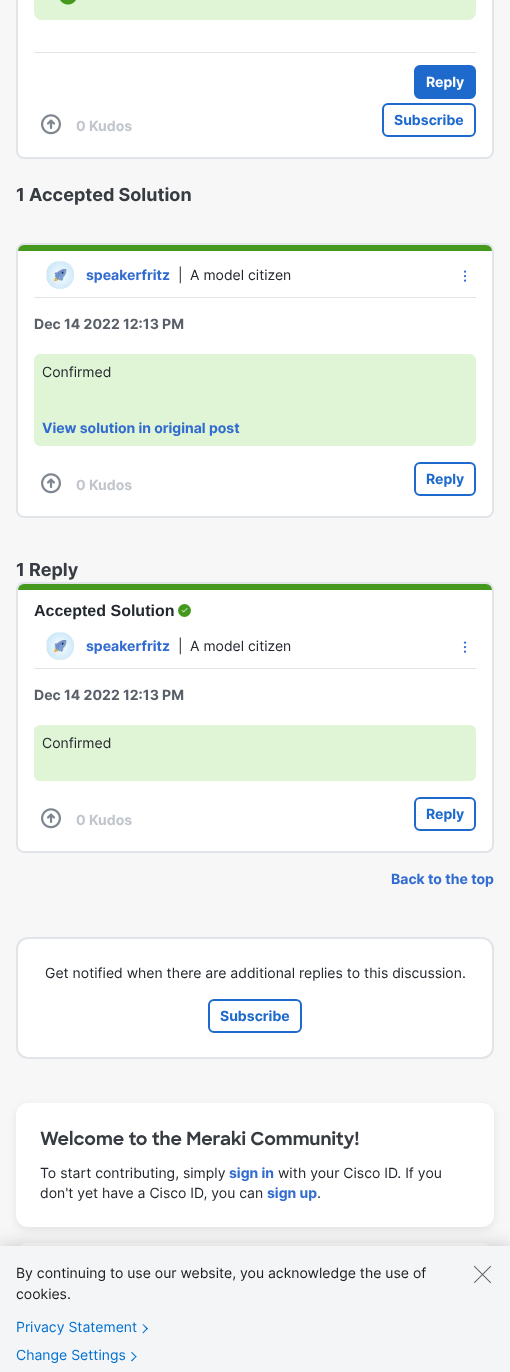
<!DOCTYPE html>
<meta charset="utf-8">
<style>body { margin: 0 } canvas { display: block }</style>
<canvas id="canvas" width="510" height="1372"></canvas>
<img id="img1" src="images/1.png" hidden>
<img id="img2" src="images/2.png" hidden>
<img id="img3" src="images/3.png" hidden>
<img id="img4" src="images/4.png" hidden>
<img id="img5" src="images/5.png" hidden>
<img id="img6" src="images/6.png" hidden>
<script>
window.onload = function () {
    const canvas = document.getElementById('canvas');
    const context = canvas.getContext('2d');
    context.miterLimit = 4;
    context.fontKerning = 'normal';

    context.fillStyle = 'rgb(247, 247, 247)';
    context.fillRect(0, 0, 510, 1372);
    context.fillStyle = 'rgb(255, 255, 255)';
    context.beginPath();
    context.roundRect(17, -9, 476, 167, 7);
    context.fill();
    context.strokeStyle = 'rgb(225, 228, 232)';
    context.lineWidth = 2;
    context.stroke();
    context.fillStyle = 'rgb(224, 245, 213)';
    context.beginPath();
    context.roundRect(34, -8, 442, 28, 8);
    context.fill();
    context.drawImage(document.getElementById('img1'), 60, 0, 16, 5);
    context.fillStyle = 'rgb(225, 228, 232)';
    context.fillRect(34, 52, 442, 1);
    context.drawImage(document.getElementById('img2'), 41, 114, 20, 21);
    context.fillStyle = 'rgb(29, 105, 204)';
    context.beginPath();
    context.roundRect(415, 66, 60, 32, 5);
    context.fill();
    context.strokeStyle = 'rgb(29, 105, 204)';
    context.stroke();
    context.beginPath();
    context.roundRect(383, 104, 92, 32, 5);
    context.stroke();
    context.fillStyle = 'rgb(255, 255, 255)';
    context.beginPath();
    context.roundRect(17, 244, 476, 273, 7);
    context.fill();
    context.strokeStyle = 'rgb(225, 228, 232)';
    context.stroke();
    context.fillStyle = 'rgb(69, 153, 31)';
    context.beginPath();
    context.roundRect(18, 245, 474, 6, [6, 6, 0, 0]);
    context.fill();
    context.fillStyle = 'rgb(225, 228, 232)';
    context.fillRect(34, 297, 442, 1);
    context.filter = 'blur(0.5px)';
    context.beginPath();
    context.roundRect(46, 261, 28, 28, 14);
    context.fill();
    context.filter = 'none';
    context.drawImage(document.getElementById('img3'), 46, 261, 28, 28);
    context.drawImage(document.getElementById('img4'), 463, 270, 4, 12);
    context.fillStyle = 'rgb(224, 245, 213)';
    context.beginPath();
    context.roundRect(34, 354, 442, 92, 6);
    context.fill();
    context.drawImage(document.getElementById('img2'), 41, 473, 20, 21);
    context.beginPath();
    context.roundRect(415, 463, 60, 32, 5);
    context.strokeStyle = 'rgb(29, 105, 204)';
    context.stroke();
    context.fillStyle = 'rgb(255, 255, 255)';
    context.beginPath();
    context.roundRect(17, 583, 476, 269, 7);
    context.fill();
    context.strokeStyle = 'rgb(225, 228, 232)';
    context.stroke();
    context.fillStyle = 'rgb(69, 153, 31)';
    context.beginPath();
    context.roundRect(18, 584, 474, 6, [6, 6, 0, 0]);
    context.fill();
    context.fillStyle = 'rgb(225, 228, 232)';
    context.fillRect(34, 668, 442, 1);
    context.fillStyle = 'rgb(69, 153, 31)';
    context.beginPath();
    context.arc(184.5, 610.5, 6.5, 0, 2 * Math.PI);
    context.fill();
    context.drawImage(document.getElementById('img5'), 181, 608, 7, 5);
    context.fillStyle = 'rgb(225, 228, 232)';
    context.filter = 'blur(0.5px)';
    context.beginPath();
    context.roundRect(46, 632, 28, 28, 14);
    context.fill();
    context.filter = 'none';
    context.drawImage(document.getElementById('img3'), 46, 632, 28, 28);
    context.drawImage(document.getElementById('img4'), 463, 641, 4, 12);
    context.fillStyle = 'rgb(224, 245, 213)';
    context.beginPath();
    context.roundRect(34, 725, 442, 56, 6);
    context.fill();
    context.drawImage(document.getElementById('img2'), 41, 808, 20, 21);
    context.beginPath();
    context.roundRect(415, 798, 60, 32, 5);
    context.strokeStyle = 'rgb(29, 105, 204)';
    context.stroke();
    context.fillStyle = 'rgb(255, 255, 255)';
    context.beginPath();
    context.roundRect(17, 938, 476, 120, 11);
    context.fill();
    context.strokeStyle = 'rgb(225, 228, 232)';
    context.stroke();
    context.beginPath();
    context.roundRect(209, 1000, 92, 32, 5);
    context.strokeStyle = 'rgb(29, 105, 204)';
    context.stroke();
    context.fillStyle = 'rgba(0, 0, 0, 0.08)';
    context.filter = 'blur(4px)';
    context.beginPath();
    context.roundRect(16, 1106, 478, 124, 12);
    context.fill();
    context.filter = 'none';
    context.fillStyle = 'rgb(255, 255, 255)';
    context.beginPath();
    context.roundRect(16, 1103, 478, 124, 12);
    context.fill();
    context.beginPath();
    context.roundRect(16, 1243, 478, 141, 12);
    context.fill();
    context.fillStyle = 'rgba(0, 0, 0, 0.2)';
    context.filter = 'blur(9px)';
    context.beginPath();
    context.rect(0, 1246, 510, 126);
    context.fill();
    context.filter = 'none';
    context.fillStyle = 'rgb(244, 245, 246)';
    context.fillRect(0, 1246, 510, 126);
    context.fillStyle = 'rgb(0, 112, 210)';
    context.beginPath();
    context.moveTo(143, 1324);
    context.lineTo(148, 1328.5);
    context.lineTo(147, 1329.5);
    context.lineTo(142.5, 1324.5);
    context.closePath();
    context.fill();
    context.beginPath();
    context.moveTo(147, 1328);
    context.lineTo(148, 1328.5);
    context.lineTo(143, 1333.5);
    context.lineTo(142.5, 1332.5);
    context.closePath();
    context.moveTo(132, 1352);
    context.lineTo(136.5, 1356.5);
    context.lineTo(136, 1357.5);
    context.lineTo(131, 1352.5);
    context.closePath();
    context.fill();
    context.beginPath();
    context.moveTo(136, 1356);
    context.lineTo(136.5, 1356.5);
    context.lineTo(132, 1361.5);
    context.lineTo(131, 1360.5);
    context.closePath();
    context.fill();
    context.drawImage(document.getElementById('img6'), 473, 1265, 19, 19);
    context.font = 'bold 14px Inter';
    context.fillStyle = 'rgb(193, 198, 204)';
    context.fillText('0 Kudos', 76, 131);
    context.fillStyle = 'rgb(255, 255, 255)';
    context.fillText('Reply', 426, 87);
    context.fillStyle = 'rgb(29, 105, 204)';
    context.fillText('Subscribe', 394, 125);
    context.font = 'bold 18px Inter';
    context.fillStyle = 'rgb(55, 60, 66)';
    context.fillText('1 Accepted Solution', 16, 201);
    context.font = 'bold 14px Inter';
    context.fillStyle = 'rgb(50, 108, 209)';
    context.fillText('speakerfritz', 86, 280);
    context.font = '14px Inter';
    context.fillStyle = 'rgb(35, 40, 46)';
    context.fillText('|', 178, 280);
    context.fillText('A model citizen', 190, 280);
    context.font = 'bold 14px Inter';
    context.fillStyle = 'rgb(89, 96, 105)';
    context.fillText('Dec 14 2022 12:13 PM', 34, 329);
    context.font = '14px Inter';
    context.fillStyle = 'rgb(35, 40, 46)';
    context.fillText('Confirmed', 42, 377);
    context.font = 'bold 14px Inter';
    context.fillStyle = 'rgb(50, 108, 209)';
    context.fillText('View solution in original post', 42, 433);
    context.fillStyle = 'rgb(193, 198, 204)';
    context.fillText('0 Kudos', 76, 490);
    context.fillStyle = 'rgb(29, 105, 204)';
    context.fillText('Reply', 426, 484);
    context.font = 'bold 18px Inter';
    context.fillStyle = 'rgb(55, 60, 66)';
    context.fillText('1 Reply', 16, 576);
    context.font = 'bold 16px Liberation Sans';
    context.fillStyle = 'rgb(35, 40, 46)';
    context.fillText('Accepted Solution', 34, 616);
    context.font = 'bold 14px Inter';
    context.fillStyle = 'rgb(50, 108, 209)';
    context.fillText('speakerfritz', 86, 651);
    context.font = '14px Inter';
    context.fillStyle = 'rgb(35, 40, 46)';
    context.fillText('|', 178, 651);
    context.fillText('A model citizen', 190, 651);
    context.font = 'bold 14px Inter';
    context.fillStyle = 'rgb(89, 96, 105)';
    context.fillText('Dec 14 2022 12:13 PM', 34, 700);
    context.font = '14px Inter';
    context.fillStyle = 'rgb(35, 40, 46)';
    context.fillText('Confirmed', 42, 748);
    context.font = 'bold 14px Inter';
    context.fillStyle = 'rgb(193, 198, 204)';
    context.fillText('0 Kudos', 76, 825);
    context.fillStyle = 'rgb(29, 105, 204)';
    context.fillText('Reply', 426, 819);
    context.fillStyle = 'rgb(50, 108, 209)';
    context.fillText('Back to the top', 391, 884);
    context.font = '14px Inter';
    context.fillStyle = 'rgb(35, 40, 46)';
    context.fillText('Get notified when there are additional replies to this discussion.', 45, 978);
    context.font = 'bold 14px Inter';
    context.fillStyle = 'rgb(29, 105, 204)';
    context.fillText('Subscribe', 220, 1021);
    context.font = 'bold 18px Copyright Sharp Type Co';
    context.fillStyle = 'rgb(55, 60, 66)';
    context.fillText('Welcome to the Meraki Community!', 40, 1145);
    context.font = '14px Inter';
    context.fillStyle = 'rgb(35, 40, 46)';
    context.fillText('To start contributing, simply', 40, 1178);
    context.font = 'bold 14px Inter';
    context.fillStyle = 'rgb(50, 108, 209)';
    context.fillText('sign in', 229, 1178);
    context.font = '14px Inter';
    context.fillStyle = 'rgb(35, 40, 46)';
    context.fillText('with your Cisco ID. If you', 278, 1178);
    context.fillText('don\'t yet have a Cisco ID, you can', 40, 1198);
    context.font = 'bold 14px Inter';
    context.fillStyle = 'rgb(50, 108, 209)';
    context.fillText('sign up', 267, 1198);
    context.font = '14px Inter';
    context.fillStyle = 'rgb(35, 40, 46)';
    context.fillText('.', 317, 1198);
    context.fillStyle = 'rgb(27, 28, 29)';
    context.fillText('By continuing to use our website, you acknowledge the use of', 16, 1278);
    context.fillText('cookies.', 16, 1299);
    context.fillStyle = 'rgb(0, 112, 210)';
    context.fillText('Privacy Statement', 16, 1332);
    context.fillText('Change Settings', 16, 1360);
};
</script>
